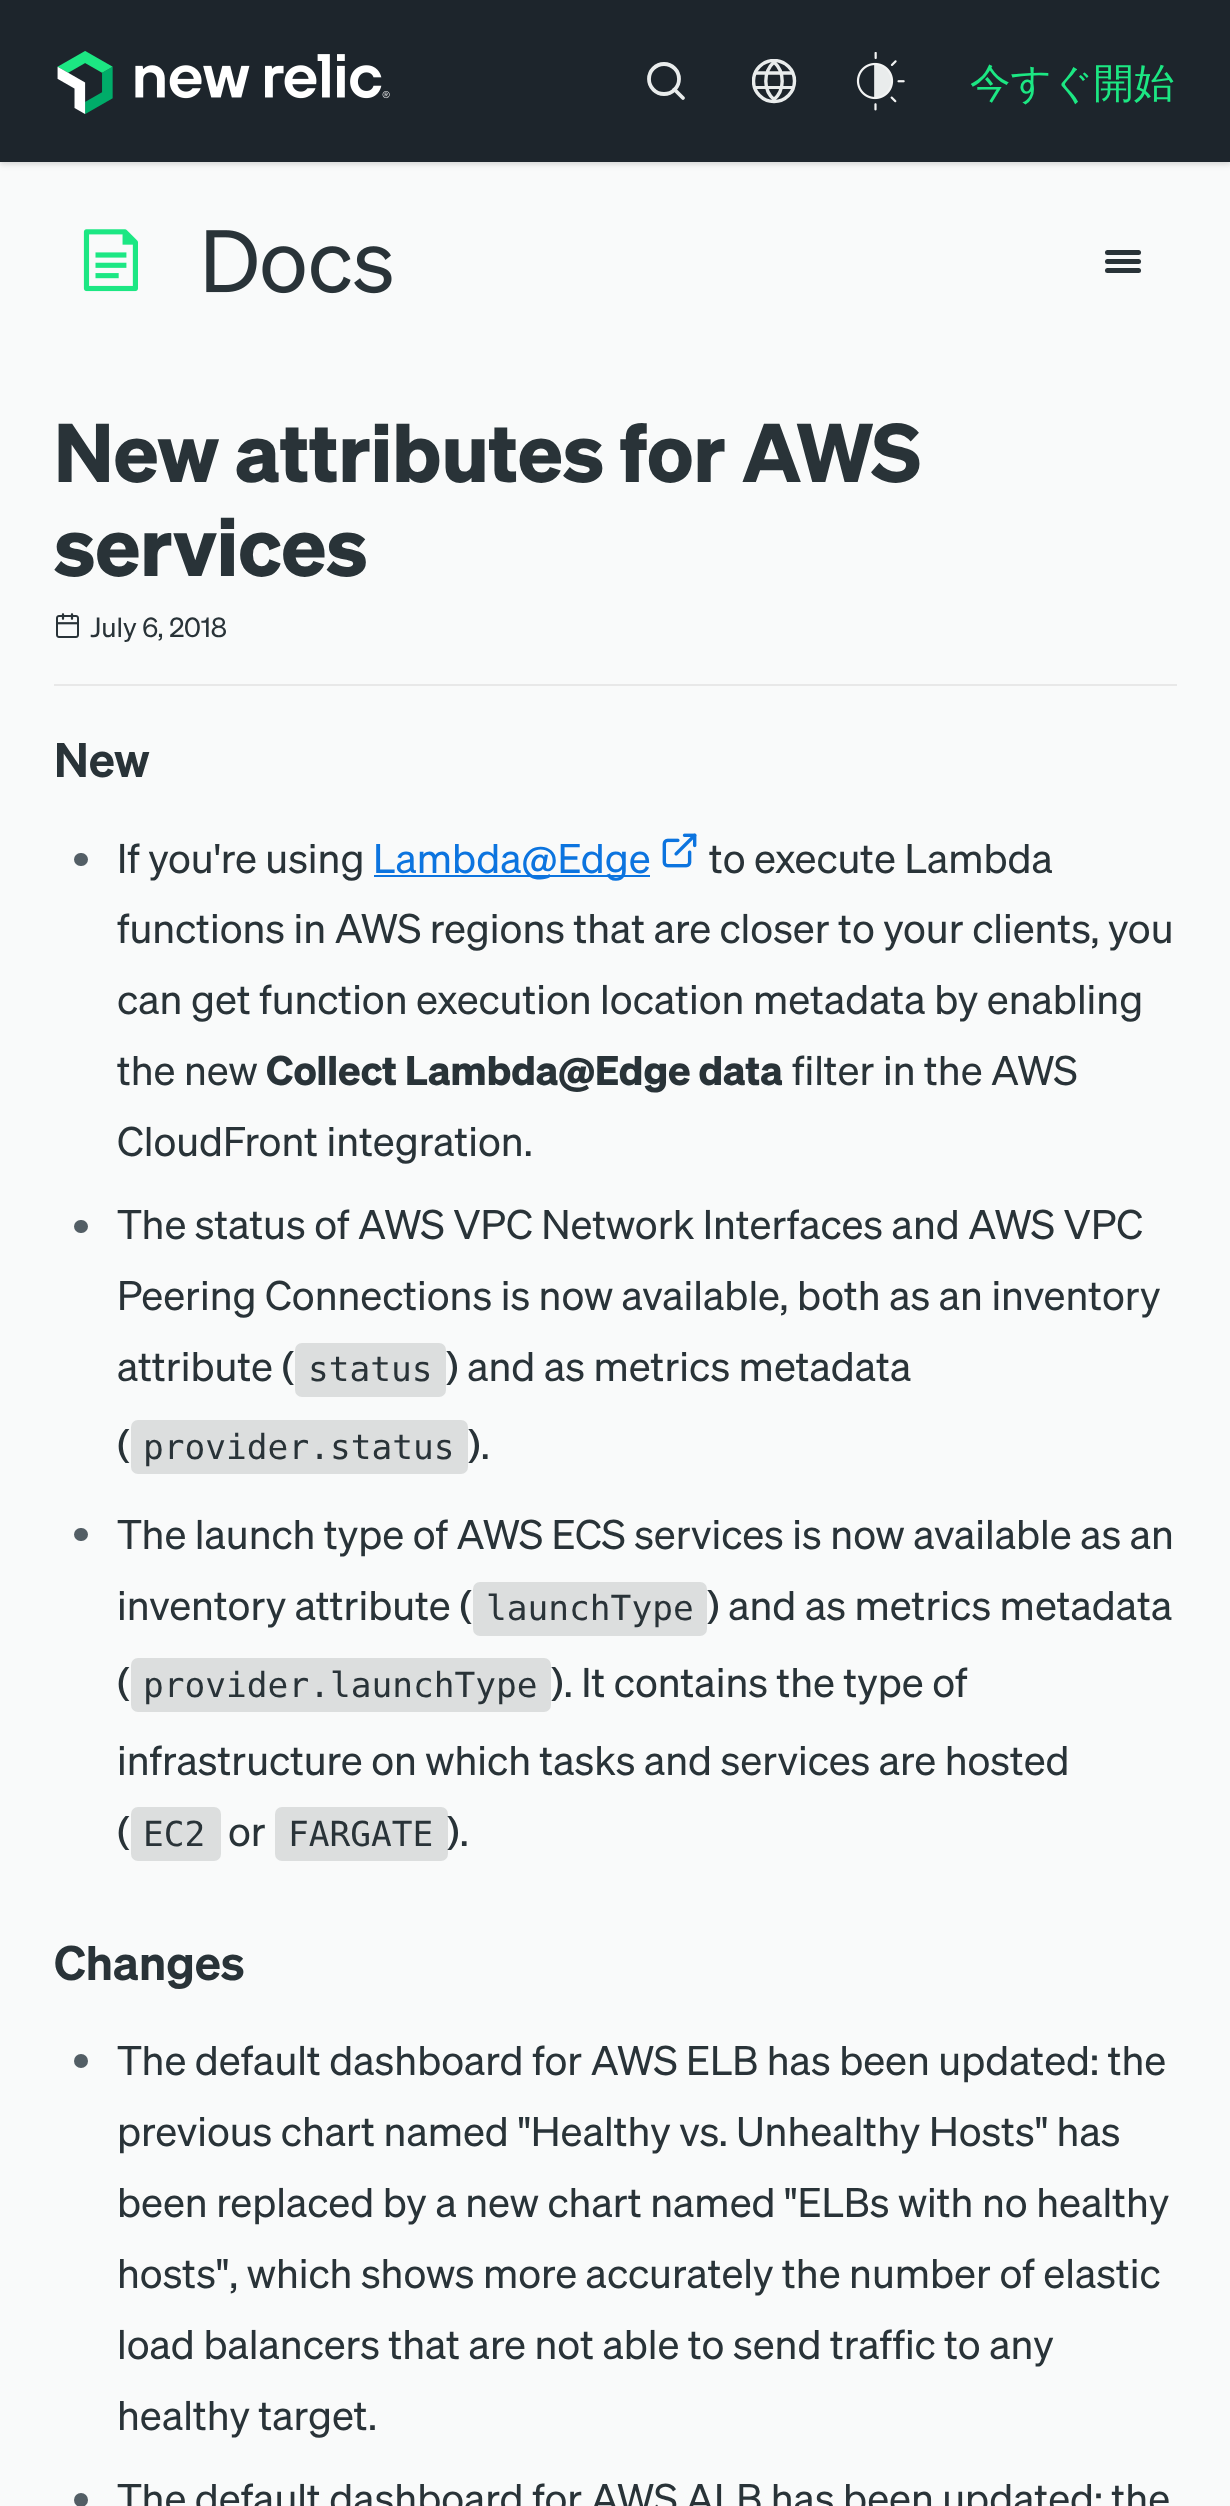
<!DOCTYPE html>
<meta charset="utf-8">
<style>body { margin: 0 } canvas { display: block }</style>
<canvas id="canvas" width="1230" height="2506"></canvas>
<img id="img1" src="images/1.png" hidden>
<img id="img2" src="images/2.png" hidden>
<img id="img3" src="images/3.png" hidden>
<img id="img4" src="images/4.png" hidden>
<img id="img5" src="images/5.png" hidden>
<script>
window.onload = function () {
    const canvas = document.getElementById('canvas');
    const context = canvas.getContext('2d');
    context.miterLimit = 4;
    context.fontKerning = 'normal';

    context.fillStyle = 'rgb(249, 250, 250)';
    context.fillRect(0, 0, 1230, 2506);
    context.fillStyle = 'rgba(0, 0, 0, 0.06)';
    context.filter = 'blur(2px)';
    context.beginPath();
    context.rect(0, 2, 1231, 162);
    context.fill();
    context.filter = 'none';
    context.fillStyle = 'rgba(0, 0, 0, 0.1)';
    context.filter = 'blur(3.5px)';
    context.beginPath();
    context.rect(0, 2, 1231, 162);
    context.fill();
    context.filter = 'none';
    context.fillStyle = 'rgb(29, 37, 44)';
    context.fillRect(0, 0, 1230, 162);
    context.drawImage(document.getElementById('img1'), 57, 51, 333, 63);
    context.beginPath();
    context.arc(664, 79, 15, 0, 2 * Math.PI);
    context.strokeStyle = 'rgb(233, 236, 236)';
    context.lineWidth = 3.8;
    context.stroke();
    context.beginPath();
    context.moveTo(683, 98);
    context.lineTo(674.5, 89.5);
    context.lineCap = 'round';
    context.lineJoin = 'round';
    context.stroke();
    context.save();
    context.beginPath();
    context.rect(752, 59, 45, 45);
    context.clip();
    context.beginPath();
    context.arc(774, 81, 20.5, 0, 2 * Math.PI);
    context.lineWidth = 3.4;
    context.stroke();
    context.restore();
    context.beginPath();
    context.moveTo(774.5, 100);
    context.bezierCurveTo(763, 90.5, 763, 72, 774, 62);
    context.moveTo(773.5, 100);
    context.bezierCurveTo(785, 90.5, 785, 72, 774, 62);
    context.moveTo(755.5, 73);
    context.lineTo(792.5, 73);
    context.lineWidth = 3.4;
    context.lineCap = 'butt';
    context.lineJoin = 'miter';
    context.stroke();
    context.fillStyle = 'rgb(233, 236, 236)';
    context.fillRect(754, 86, 39, 3);
    context.drawImage(document.getElementById('img2'), 856, 52, 49, 59);
    context.drawImage(document.getElementById('img3'), 83, 229, 309, 65);
    context.fillStyle = 'rgb(41, 51, 56)';
    context.beginPath();
    context.roundRect(1105, 250, 36, 5, 2.5);
    context.fill();
    context.beginPath();
    context.roundRect(1105, 259, 36, 5, 2.5);
    context.fill();
    context.beginPath();
    context.roundRect(1105, 268, 36, 5, 2.5);
    context.fill();
    context.fillStyle = 'rgb(232, 232, 232)';
    context.fillRect(54, 684, 1123, 2);
    context.drawImage(document.getElementById('img4'), 56, 613, 23, 25);
    context.fillStyle = 'rgb(83, 94, 101)';
    context.beginPath();
    context.roundRect(74, 853, 14, 13, 6.5);
    context.fill();
    context.fillStyle = 'rgb(12, 116, 223)';
    context.fillRect(374, 875, 276, 2);
    context.drawImage(document.getElementById('img5'), 662, 833, 35, 35);
    context.fillStyle = 'rgb(83, 94, 101)';
    context.beginPath();
    context.roundRect(74, 1220, 14, 13, 6.5);
    context.fill();
    context.fillStyle = 'rgb(220, 222, 222)';
    context.beginPath();
    context.roundRect(295, 1343, 151, 54, 7);
    context.fill();
    context.beginPath();
    context.roundRect(131, 1420, 337, 54, 7);
    context.fill();
    context.fillStyle = 'rgb(83, 94, 101)';
    context.beginPath();
    context.roundRect(74, 1528, 14, 13, 6.5);
    context.fill();
    context.fillStyle = 'rgb(220, 222, 222)';
    context.beginPath();
    context.roundRect(473, 1582, 234, 54, 7);
    context.fill();
    context.beginPath();
    context.roundRect(131, 1658, 420, 54, 7);
    context.fill();
    context.beginPath();
    context.roundRect(131, 1807, 90, 54, 7);
    context.fill();
    context.beginPath();
    context.roundRect(275, 1807, 173, 54, 7);
    context.fill();
    context.fillStyle = 'rgb(83, 94, 101)';
    context.beginPath();
    context.arc(81, 2061, 7, 0, 2 * Math.PI);
    context.fill();
    context.beginPath();
    context.arc(81, 2500, 7, 0, 2 * Math.PI);
    context.fill();
    context.font = '500 40.5px WenQuanYi Zen Hei';
    context.fillStyle = 'rgb(28, 231, 131)';
    context.fillText('今すぐ開始', 970, 97);
    context.font = 'bold 81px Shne';
    context.fillStyle = 'rgb(41, 51, 56)';
    context.fillText('New attributes for AWS', 54, 482);
    context.fillText('services', 54, 576);
    context.font = '27px Shne';
    context.fillText('July 6, 2018', 90, 637);
    context.font = '600 47.5px Shne';
    context.fillText('New', 54, 777);
    context.font = '40.5px Shne';
    context.fillText('If you\'re using', 117, 873);
    context.fillStyle = 'rgb(12, 116, 223)';
    context.fillText('Lambda@Edge', 373, 873);
    context.fillStyle = 'rgb(41, 51, 56)';
    context.fillText('to execute Lambda', 709, 873);
    context.fillText('functions in AWS regions that are closer to your clients, you', 117, 943);
    context.fillText('can get function execution location metadata by enabling', 117, 1014);
    context.fillText('the new', 117, 1085);
    context.font = 'bold 40.5px Shne';
    context.fillText('Collect Lambda@Edge data', 266, 1085);
    context.font = '40.5px Shne';
    context.fillText('filter in the AWS', 792, 1085);
    context.fillText('CloudFront integration.', 117, 1156);
    context.fillText('The status of AWS VPC Network Interfaces and AWS VPC', 117, 1239);
    context.fillText('Peering Connections is now available, both as an inventory', 117, 1310);
    context.fillText('attribute (', 117, 1381);
    context.font = '34.5px DejaVu Sans Mono';
    context.fillText('status', 308, 1381);
    context.font = '40.5px Shne';
    context.fillText(') and as metrics metadata', 446, 1381);
    context.fillText('(', 117, 1459);
    context.font = '34.5px DejaVu Sans Mono';
    context.fillText('provider.status', 143, 1459);
    context.font = '40.5px Shne';
    context.fillText(').', 468, 1459);
    context.fillText('The launch type of AWS ECS services is now available as an', 117, 1549);
    context.fillText('inventory attribute (', 117, 1620);
    context.font = '34.5px DejaVu Sans Mono';
    context.fillText('launchType', 486, 1620);
    context.font = '40.5px Shne';
    context.fillText(') and as metrics metadata', 707, 1620);
    context.fillText('(', 117, 1697);
    context.font = '34.5px DejaVu Sans Mono';
    context.fillText('provider.launchType', 143, 1697);
    context.font = '40.5px Shne';
    context.fillText('). It contains the type of', 551, 1697);
    context.fillText('infrastructure on which tasks and services are hosted', 117, 1775);
    context.fillText('(', 117, 1846);
    context.font = '34.5px DejaVu Sans Mono';
    context.fillText('EC2', 143, 1846);
    context.font = '40.5px Shne';
    context.fillText('or', 228, 1846);
    context.font = '34.5px DejaVu Sans Mono';
    context.fillText('FARGATE', 288, 1846);
    context.font = '40.5px Shne';
    context.fillText(').', 447, 1846);
    context.font = '600 47.5px Shne';
    context.fillText('Changes', 54, 1980);
    context.font = '40.5px Shne';
    context.fillText('The default dashboard for AWS ELB has been updated: the', 117, 2075);
    context.fillText('previous chart named "Healthy vs. Unhealthy Hosts" has', 117, 2146);
    context.fillText('been replaced by a new chart named "ELBs with no healthy', 117, 2217);
    context.fillText('hosts", which shows more accurately the number of elastic', 117, 2288);
    context.fillText('load balancers that are not able to send traffic to any', 117, 2359);
    context.fillText('healthy target.', 117, 2430);
    context.fillText('The default dashboard for AWS ALB has been updated: the', 117, 2513);
};
</script>
